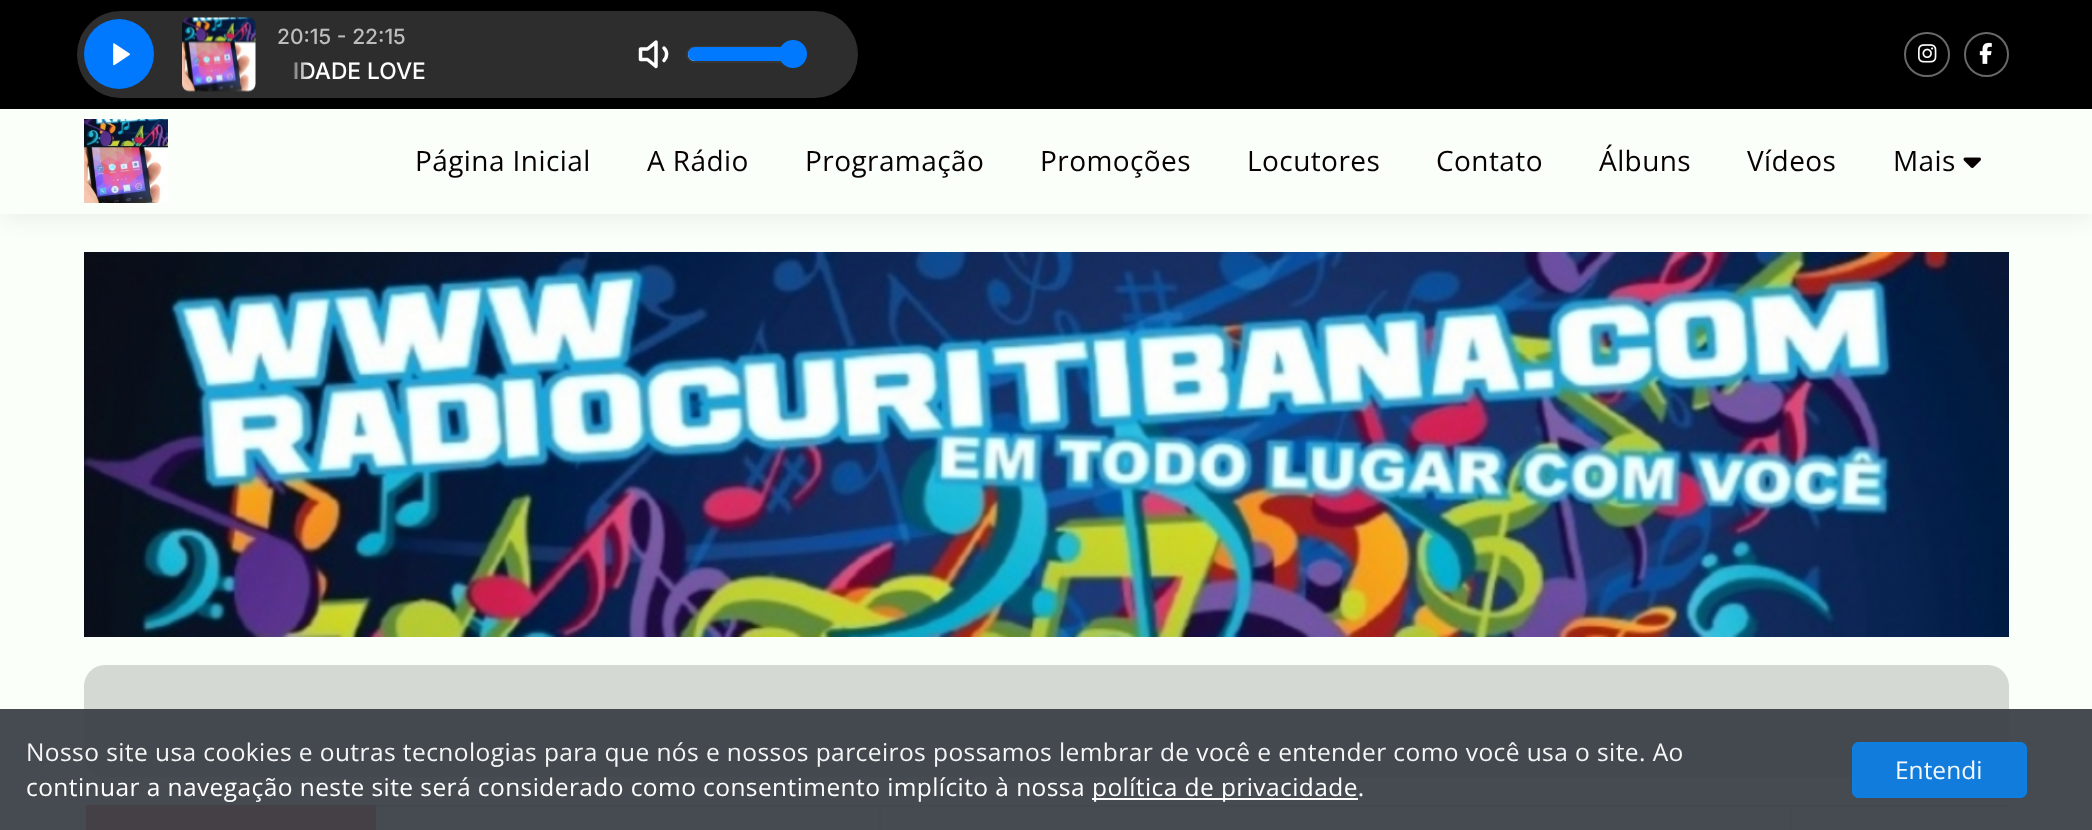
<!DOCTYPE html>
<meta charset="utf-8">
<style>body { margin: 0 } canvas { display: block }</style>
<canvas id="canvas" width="2092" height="830"></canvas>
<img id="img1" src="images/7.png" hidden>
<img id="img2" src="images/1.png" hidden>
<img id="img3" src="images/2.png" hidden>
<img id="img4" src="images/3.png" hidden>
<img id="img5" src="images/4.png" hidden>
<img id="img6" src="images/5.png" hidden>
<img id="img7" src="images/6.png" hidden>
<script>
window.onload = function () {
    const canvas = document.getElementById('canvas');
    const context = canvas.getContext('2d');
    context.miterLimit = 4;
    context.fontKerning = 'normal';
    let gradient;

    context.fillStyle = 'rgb(250, 255, 250)';
    context.fillRect(0, 0, 2092, 830);
    context.drawImage(document.getElementById('img1'), 84, 252, 1925, 385);
    context.fillStyle = 'rgba(0, 0, 0, 0.07)';
    context.filter = 'blur(12px)';
    context.beginPath();
    context.rect(0, 112, 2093, 105);
    context.fill();
    context.filter = 'none';
    context.fillStyle = 'rgb(0, 0, 0)';
    context.fillRect(0, 0, 2092, 109);
    context.fillStyle = 'rgb(45, 45, 45)';
    context.beginPath();
    context.roundRect(77, 11, 781, 87, 43.5);
    context.fill();
    context.fillStyle = 'rgb(0, 121, 255)';
    context.beginPath();
    context.arc(119, 54, 35, 0, 2 * Math.PI);
    context.fill();
    context.drawImage(document.getElementById('img2'), 113, 43, 17, 23);
    context.drawImage(document.getElementById('img3'), 182, 17, 74, 75);
    context.beginPath();
    context.moveTo(656, 42);
    context.lineTo(647.5, 49);
    context.lineTo(640.5, 49);
    context.lineTo(640.5, 59.5);
    context.lineTo(647.5, 59.5);
    context.lineTo(656, 66.5);
    context.closePath();
    context.moveTo(664, 48);
    context.bezierCurveTo(667.5, 51.5, 667.5, 57, 664, 60.5);
    context.strokeStyle = 'rgb(255, 255, 255)';
    context.lineWidth = 3.5;
    context.lineCap = 'round';
    context.lineJoin = 'round';
    context.stroke();
    context.fillStyle = 'rgb(204, 228, 255)';
    context.beginPath();
    context.roundRect(687, 47, 107, 15, 7.5);
    context.fill();
    context.strokeStyle = 'rgb(55, 55, 55)';
    context.lineWidth = 2;
    context.lineJoin = 'miter';
    context.stroke();
    context.fillStyle = 'rgb(0, 121, 255)';
    context.beginPath();
    context.roundRect(688, 47, 105, 14, 7);
    context.fill();
    context.beginPath();
    context.arc(793, 54, 13, 0, 2 * Math.PI);
    context.fill();
    context.strokeStyle = 'rgb(0, 121, 255)';
    context.stroke();
    context.beginPath();
    context.roundRect(1905, 33, 44, 43, 21.5);
    context.strokeStyle = 'rgb(104, 104, 104)';
    context.stroke();
    context.drawImage(document.getElementById('img4'), 1918, 44, 19, 19);
    context.beginPath();
    context.arc(1986.5, 54.5, 21.5, 0, 2 * Math.PI);
    context.stroke();
    context.drawImage(document.getElementById('img5'), 1979, 42, 13, 22);
    context.fillStyle = 'rgb(250, 255, 250)';
    context.fillRect(0, 109, 2092, 105);
    context.drawImage(document.getElementById('img6'), 84, 119, 84, 84);
    context.drawImage(document.getElementById('img7'), 1963, 157, 18, 11);
    context.fillStyle = 'rgb(212, 217, 212)';
    context.beginPath();
    context.roundRect(84, 665, 1925, 112, 21);
    context.fill();
    context.fillStyle = 'rgb(231, 37, 37)';
    context.fillRect(86, 805, 290, 25);
    context.fillStyle = 'rgb(255, 255, 255)';
    context.fillRect(376, 807, 1631, 23);
    context.fillStyle = 'rgb(206, 206, 208)';
    context.fillRect(376, 805, 1631, 2);
    context.fillRect(879, 807, 2, 23);
    context.fillRect(1790, 807, 2, 23);
    context.fillStyle = 'rgba(60, 65, 72, 0.95)';
    context.fillRect(0, 709, 2092, 121);
    context.fillStyle = 'rgb(255, 255, 255)';
    context.fillRect(1092, 798, 266, 2);
    context.fillStyle = 'rgb(17, 124, 219)';
    context.beginPath();
    context.roundRect(1852, 742, 175, 56, 7);
    context.fill();
    context.beginPath();
    context.roundRect(1853, 743, 173, 54, 6);
    context.strokeStyle = 'rgba(14, 127, 226, 0.95)';
    context.stroke();
    context.font = '500 21px Inter';
    context.fillStyle = 'rgb(189, 189, 189)';
    context.fillText('20:15 - 22:15', 277, 44);
    context.font = '500 22.75px Inter';
    context.fillStyle = 'rgb(255, 255, 255)';
    context.fillText('IDADE LOVE', 293, 79);
    gradient = context.createLinearGradient(277, 71, 310, 71);
    gradient.addColorStop(0.2, 'rgb(45, 45, 45)');
    gradient.addColorStop(1, 'rgba(45, 45, 45, 0)');
    context.fillStyle = gradient;
    context.fillRect(295, 62, 14, 17);
    context.letterSpacing = '0.42px';
    context.font = '28px Open Sans';
    context.fillStyle = 'rgb(8, 1, 1)';
    context.fillText('Página Inicial', 415, 171);
    context.fillText('A Rádio', 647, 171);
    context.fillText('Programação', 805, 171);
    context.fillText('Promoções', 1040, 171);
    context.fillText('Locutores', 1247, 171);
    context.fillText('Contato', 1436, 171);
    context.fillText('Álbuns', 1599, 171);
    context.fillText('Vídeos', 1747, 171);
    context.fillText('Mais', 1893, 171);
    context.font = '24.5px Open Sans';
    context.fillStyle = 'rgb(246, 246, 246)';
    context.fillText('Nosso site usa cookies e outras tecnologias para que nós e nossos parceiros possamos lembrar de você e entender como você usa o site. Ao', 26, 761);
    context.fillStyle = 'rgb(255, 255, 255)';
    context.fillText('continuar a navegação neste site será considerado como consentimento implícito à nossa', 26, 796);
    context.fillText('política de privacidade.', 1092, 796);
    context.letterSpacing = '0px';
    context.fillStyle = 'rgb(243, 248, 253)';
    context.fillText('Entendi', 1895, 779);
};
</script>
